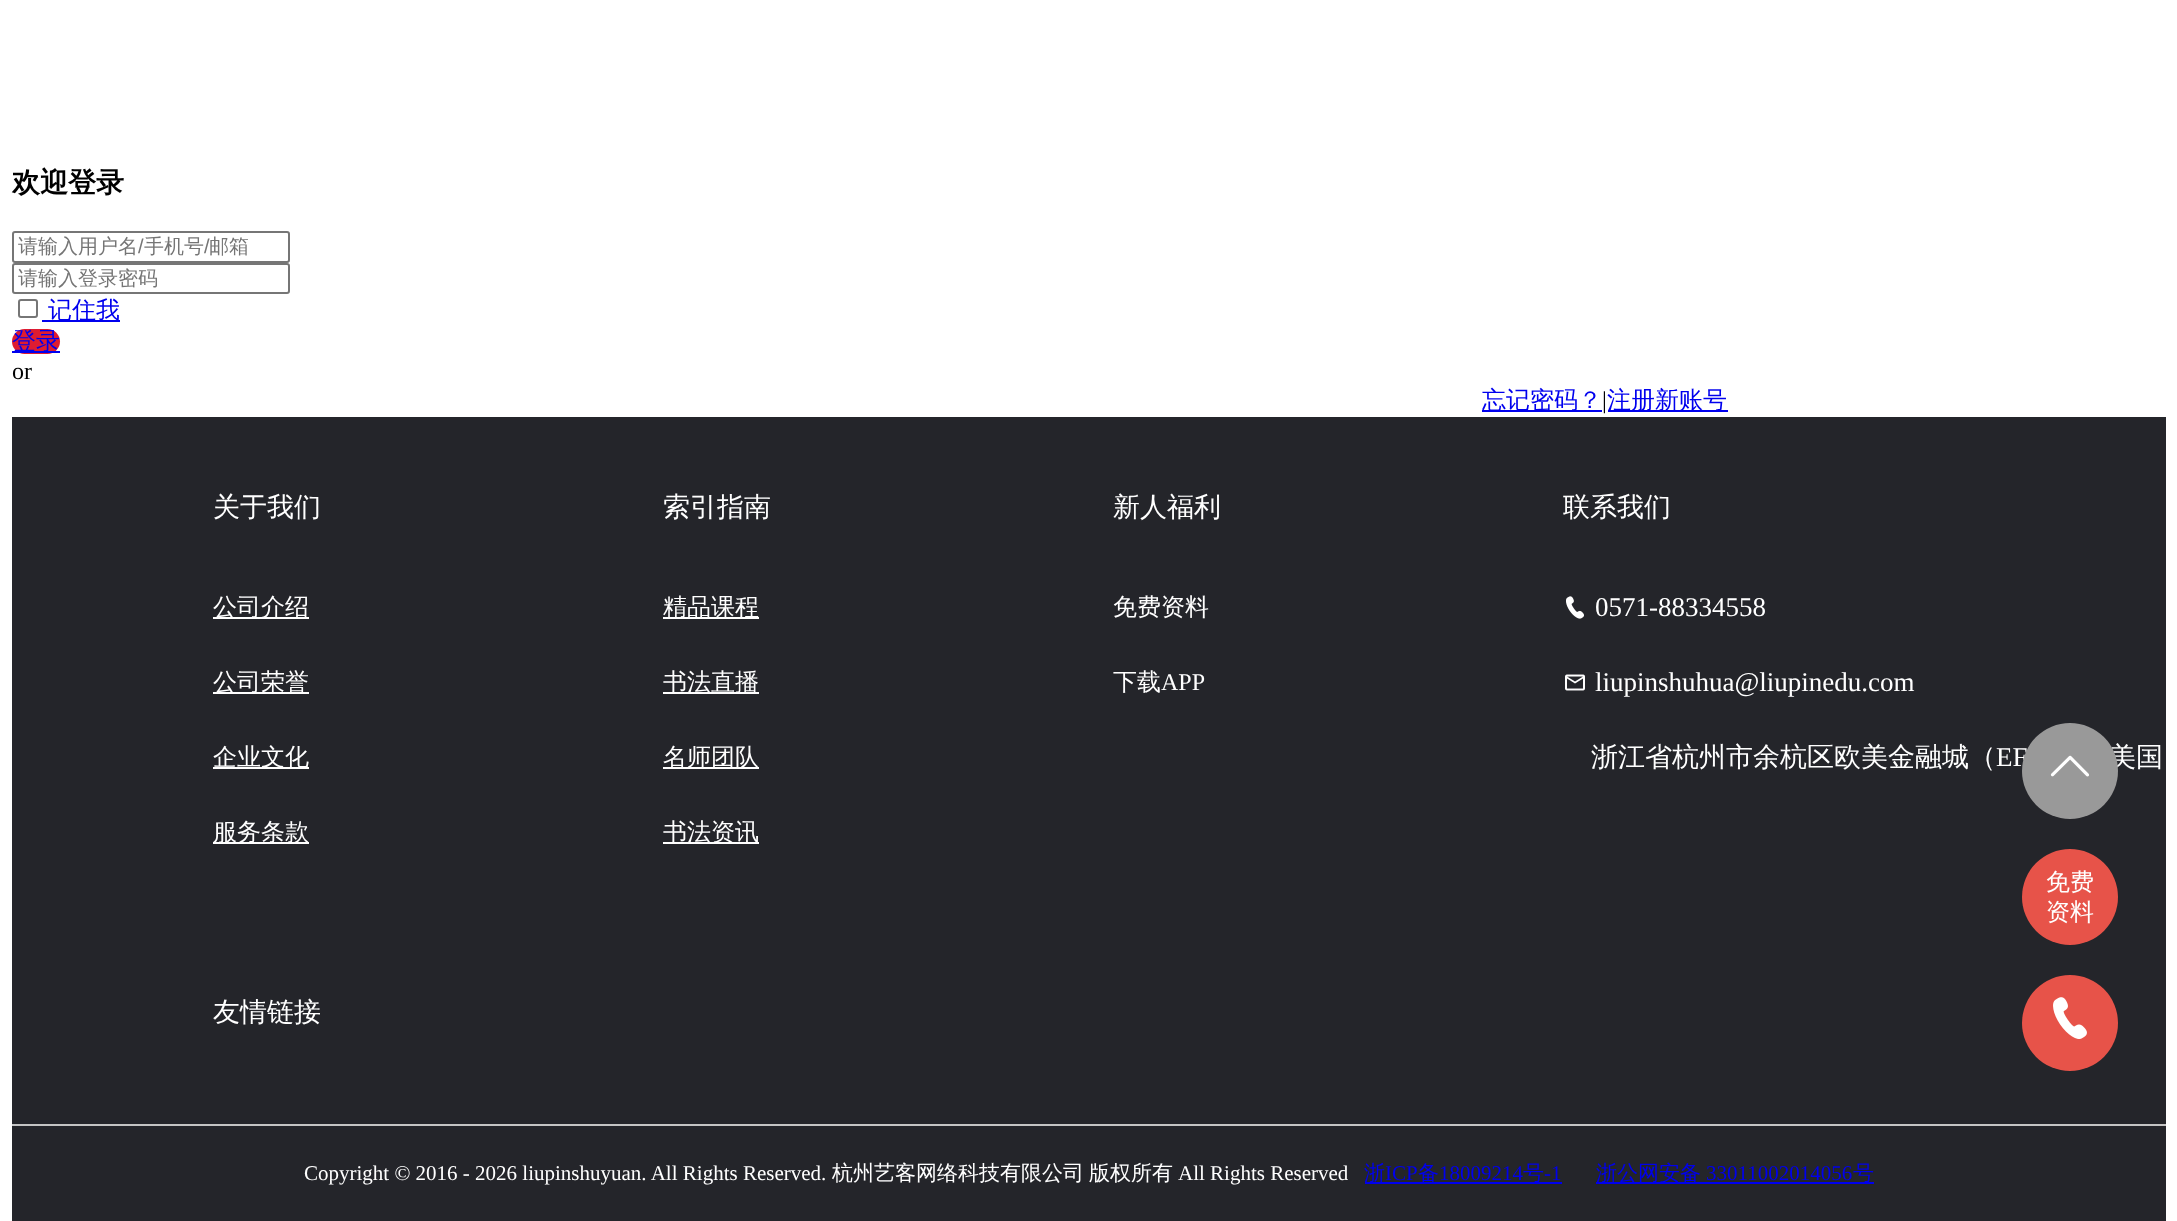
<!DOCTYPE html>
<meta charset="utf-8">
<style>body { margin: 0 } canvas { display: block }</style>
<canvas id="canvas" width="2177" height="1221"></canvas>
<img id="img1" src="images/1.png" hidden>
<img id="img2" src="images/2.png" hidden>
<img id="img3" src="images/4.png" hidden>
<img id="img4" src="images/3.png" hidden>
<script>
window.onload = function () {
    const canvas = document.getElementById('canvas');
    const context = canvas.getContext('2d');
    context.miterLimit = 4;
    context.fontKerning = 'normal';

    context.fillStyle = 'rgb(255, 255, 255)';
    context.fillRect(0, 0, 2177, 1221);
    context.beginPath();
    context.roundRect(13, 232, 276, 30, 2);
    context.strokeStyle = 'rgb(118, 118, 118)';
    context.lineWidth = 2;
    context.stroke();
    context.beginPath();
    context.roundRect(13, 264, 276, 29, 2);
    context.stroke();
    context.beginPath();
    context.roundRect(19, 300, 18, 17, 2);
    context.stroke();
    context.fillStyle = 'rgb(0, 0, 238)';
    context.fillRect(42, 320, 78, 2);
    context.fillStyle = 'rgb(222, 28, 49)';
    context.beginPath();
    context.roundRect(12, 329, 48, 25, 12.5);
    context.fill();
    context.fillStyle = 'rgb(0, 0, 238)';
    context.fillRect(12, 351, 48, 2);
    context.fillRect(1482, 410, 120, 2);
    context.fillRect(1608, 410, 120, 2);
    context.fillStyle = 'rgb(36, 37, 42)';
    context.fillRect(12, 417, 2154, 804);
    context.fillStyle = 'rgb(255, 255, 255)';
    context.fillRect(213, 617, 96, 2);
    context.fillRect(213, 692, 96, 2);
    context.fillRect(213, 767, 96, 2);
    context.fillRect(213, 842, 96, 2);
    context.fillRect(663, 617, 96, 2);
    context.fillRect(663, 692, 96, 2);
    context.fillRect(663, 767, 96, 2);
    context.fillRect(663, 842, 96, 2);
    context.drawImage(document.getElementById('img1'), 1566, 596, 18, 23);
    context.drawImage(document.getElementById('img2'), 1565, 674, 20, 17);
    context.fillStyle = 'rgb(196, 196, 196)';
    context.fillRect(12, 1124, 2154, 2);
    context.fillStyle = 'rgb(0, 0, 238)';
    context.fillRect(1365, 1182, 197, 2);
    context.fillRect(1596, 1182, 278, 2);
    context.fillStyle = 'rgb(231, 83, 73)';
    context.beginPath();
    context.arc(2070, 897, 48, 0, 2 * Math.PI);
    context.fill();
    context.beginPath();
    context.arc(2070, 1023, 48, 0, 2 * Math.PI);
    context.fill();
    context.drawImage(document.getElementById('img3'), 2053, 997, 34, 42);
    context.font = 'bold 28px WenQuanYi Zen Hei';
    context.fillStyle = 'rgb(0, 0, 0)';
    context.fillText('欢迎登录', 12, 192);
    context.font = '500 20px WenQuanYi Zen Hei';
    context.fillStyle = 'rgb(117, 117, 117)';
    context.fillText('请输入用户名', 18, 253);
    context.font = '20px Liberation Sans';
    context.fillText('/', 138, 253);
    context.font = '500 20px WenQuanYi Zen Hei';
    context.fillText('手机号', 144, 253);
    context.font = '20px Liberation Sans';
    context.fillText('/', 204, 253);
    context.font = '500 20px WenQuanYi Zen Hei';
    context.fillText('邮箱', 209, 253);
    context.fillText('请输入登录密码', 18, 285);
    context.font = '500 24px WenQuanYi Zen Hei';
    context.fillStyle = 'rgb(0, 0, 238)';
    context.fillText('记住我', 48, 318);
    context.fillText('登录', 12, 349);
    context.font = '24px Liberation Serif';
    context.fillStyle = 'rgb(0, 0, 0)';
    context.fillText('or', 12, 379);
    context.font = '500 24px WenQuanYi Zen Hei';
    context.fillStyle = 'rgb(0, 0, 238)';
    context.fillText('忘记密码？', 1482, 408);
    context.font = '24px Liberation Serif';
    context.fillStyle = 'rgb(0, 0, 0)';
    context.fillText('|', 1602, 408);
    context.font = '500 24px WenQuanYi Zen Hei';
    context.fillStyle = 'rgb(0, 0, 238)';
    context.fillText('注册新账号', 1607, 408);
    context.font = '500 27px WenQuanYi Zen Hei';
    context.fillStyle = 'rgb(255, 255, 255)';
    context.fillText('关于我们', 213, 516);
    context.font = '500 24px WenQuanYi Zen Hei';
    context.fillText('公司介绍', 213, 615);
    context.fillText('公司荣誉', 213, 690);
    context.fillText('企业文化', 213, 765);
    context.fillText('服务条款', 213, 840);
    context.font = '500 27px WenQuanYi Zen Hei';
    context.fillText('索引指南', 663, 516);
    context.font = '500 24px WenQuanYi Zen Hei';
    context.fillText('精品课程', 663, 615);
    context.fillText('书法直播', 663, 690);
    context.fillText('名师团队', 663, 765);
    context.fillText('书法资讯', 663, 840);
    context.font = '500 27px WenQuanYi Zen Hei';
    context.fillText('新人福利', 1113, 516);
    context.font = '500 24px WenQuanYi Zen Hei';
    context.fillText('免费资料', 1113, 615);
    context.fillText('下载', 1113, 690);
    context.font = '24px Liberation Serif';
    context.fillText('APP', 1161, 690);
    context.font = '500 27px WenQuanYi Zen Hei';
    context.fillText('联系我们', 1563, 516);
    context.font = '27px Liberation Serif';
    context.fillText('0571-88334558', 1595, 616);
    context.fillText('liupinshuhua@liupinedu.com', 1595, 691);
    context.font = '500 27px WenQuanYi Zen Hei';
    context.fillText('浙江省杭州市余杭区欧美金融城（', 1591, 766);
    context.font = '27px Liberation Serif';
    context.fillText('EF', 1996, 766);
    context.font = '500 27px WenQuanYi Zen Hei';
    context.fillText('美国', 2109, 766);
    context.fillText('友情链接', 213, 1021);
    context.font = '21px Liberation Serif';
    context.fillText('Copyright © 2016 - 2026 liupinshuyuan. All Rights Reserved.', 304, 1180);
    context.font = '500 21px WenQuanYi Zen Hei';
    context.fillText('杭州艺客网络科技有限公司', 832, 1180);
    context.fillText('版权所有', 1089, 1180);
    context.font = '21px Liberation Serif';
    context.fillText('All Rights Reserved', 1178, 1180);
    context.font = '500 21px WenQuanYi Zen Hei';
    context.fillStyle = 'rgb(0, 0, 238)';
    context.fillText('浙', 1364, 1180);
    context.font = '21px Liberation Serif';
    context.fillText('ICP', 1385, 1180);
    context.font = '500 21px WenQuanYi Zen Hei';
    context.fillText('备', 1418, 1180);
    context.font = '21px Liberation Serif';
    context.fillText('18009214', 1439, 1180);
    context.font = '500 21px WenQuanYi Zen Hei';
    context.fillText('号', 1523, 1180);
    context.font = '21px Liberation Serif';
    context.fillText('-1', 1544, 1180);
    context.font = '500 21px WenQuanYi Zen Hei';
    context.fillText('浙公网安备', 1596, 1180);
    context.font = '21px Liberation Serif';
    context.fillText('33011002014056', 1706, 1180);
    context.font = '500 21px WenQuanYi Zen Hei';
    context.fillText('号', 1853, 1180);
    context.fillStyle = 'rgb(153, 153, 153)';
    context.beginPath();
    context.arc(2070, 771, 48, 0, 2 * Math.PI);
    context.fill();
    context.drawImage(document.getElementById('img4'), 2050, 755, 39, 22);
    context.font = '500 24px WenQuanYi Zen Hei';
    context.fillStyle = 'rgb(255, 255, 255)';
    context.fillText('免费', 2046, 890);
    context.fillText('资料', 2046, 920);
};
</script>
